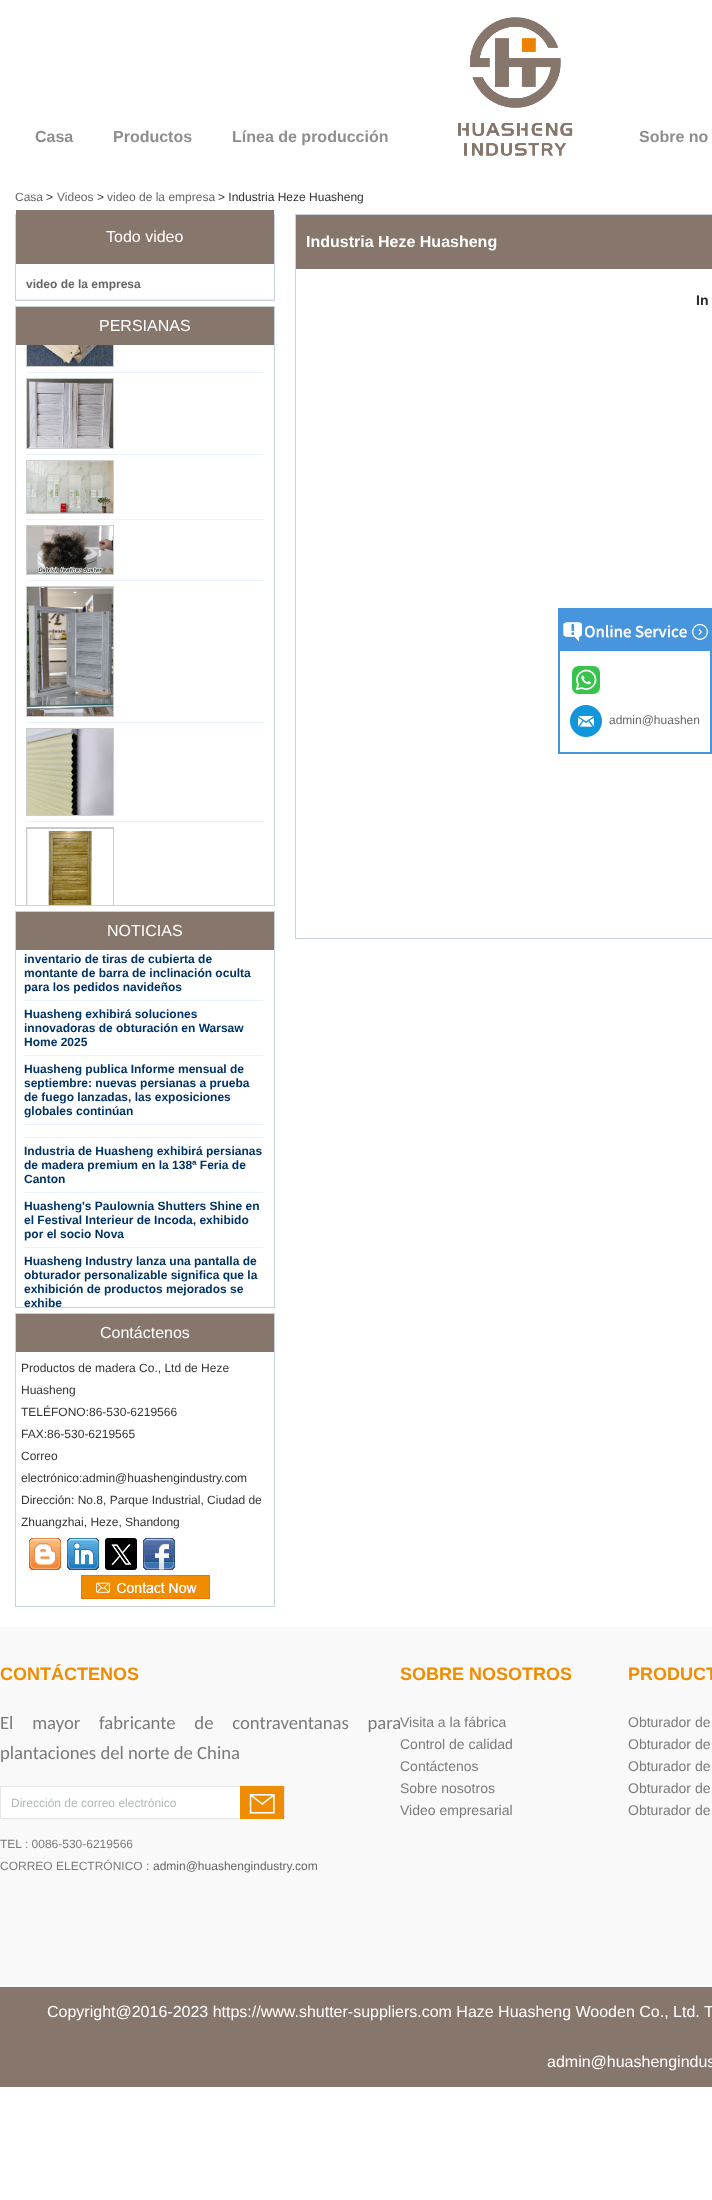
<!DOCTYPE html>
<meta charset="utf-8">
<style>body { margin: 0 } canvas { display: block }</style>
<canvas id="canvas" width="712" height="2200"></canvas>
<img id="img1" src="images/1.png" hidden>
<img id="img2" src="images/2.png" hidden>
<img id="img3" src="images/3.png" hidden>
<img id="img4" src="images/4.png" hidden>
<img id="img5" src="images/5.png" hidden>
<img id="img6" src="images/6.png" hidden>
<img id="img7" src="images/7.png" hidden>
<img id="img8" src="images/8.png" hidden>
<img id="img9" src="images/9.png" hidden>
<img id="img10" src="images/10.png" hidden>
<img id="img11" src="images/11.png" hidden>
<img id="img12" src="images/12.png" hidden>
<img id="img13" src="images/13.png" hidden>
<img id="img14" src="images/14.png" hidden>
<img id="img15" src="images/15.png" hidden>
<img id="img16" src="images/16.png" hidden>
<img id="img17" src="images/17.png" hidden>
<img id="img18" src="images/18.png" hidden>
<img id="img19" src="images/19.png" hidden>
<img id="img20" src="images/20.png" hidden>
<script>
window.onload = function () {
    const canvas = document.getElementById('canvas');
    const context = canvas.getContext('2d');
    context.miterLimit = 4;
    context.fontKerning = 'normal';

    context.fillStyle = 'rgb(255, 255, 255)';
    context.fillRect(0, 0, 712, 2200);
    context.drawImage(document.getElementById('img1'), 458, 17, 115, 139);
    context.strokeStyle = 'rgb(198, 210, 224)';
    context.strokeRect(15.5, 214.5, 259, 86);
    context.fillStyle = 'rgb(135, 118, 108)';
    context.fillRect(16, 210, 258, 54);
    context.fillStyle = 'rgb(231, 243, 255)';
    context.fillRect(16, 299, 258, 1);
    context.strokeRect(15.5, 306.5, 259, 599);
    context.fillRect(26, 372, 238, 1);
    context.save();
    context.beginPath();
    context.rect(16, 345, 258, 560);
    context.clip();
    context.strokeStyle = 'rgb(204, 204, 204)';
    context.strokeRect(26.5, 300.5, 87, 66);
    context.restore();
    context.drawImage(document.getElementById('img2'), 27, 345, 86, 21);
    context.fillRect(26, 454, 238, 1);
    context.strokeStyle = 'rgb(204, 204, 204)';
    context.strokeRect(26.5, 378.5, 87, 70);
    context.drawImage(document.getElementById('img3'), 27, 379, 86, 69);
    context.fillRect(26, 519, 238, 1);
    context.strokeRect(26.5, 460.5, 87, 53);
    context.drawImage(document.getElementById('img4'), 27, 461, 86, 52);
    context.fillRect(26, 580, 238, 1);
    context.strokeRect(26.5, 525.5, 87, 49);
    context.drawImage(document.getElementById('img5'), 27, 526, 86, 48);
    context.fillRect(26, 722, 238, 1);
    context.strokeRect(26.5, 586.5, 87, 130);
    context.drawImage(document.getElementById('img6'), 27, 587, 86, 129);
    context.fillRect(26, 821, 238, 1);
    context.strokeRect(26.5, 728.5, 87, 87);
    context.drawImage(document.getElementById('img7'), 27, 729, 86, 86);
    context.strokeStyle = 'rgb(198, 210, 224)';
    context.strokeRect(15.5, 911.5, 259, 396);
    context.save();
    context.beginPath();
    context.rect(16, 345, 258, 560);
    context.clip();
    context.strokeStyle = 'rgb(204, 204, 204)';
    context.strokeRect(26.5, 827.5, 87, 88);
    context.restore();
    context.drawImage(document.getElementById('img8'), 27, 828, 86, 77);
    context.fillStyle = 'rgb(135, 118, 108)';
    context.fillRect(16, 307, 258, 38);
    context.fillRect(16, 912, 258, 38);
    context.fillStyle = 'rgb(231, 243, 255)';
    context.fillRect(24, 1000, 239, 1);
    context.fillRect(24, 1055, 239, 1);
    context.fillRect(24, 1124, 239, 1);
    context.fillRect(24, 1137, 239, 1);
    context.fillRect(24, 1192, 239, 1);
    context.fillRect(24, 1247, 239, 1);
    context.strokeRect(15.5, 1313.5, 259, 293);
    context.fillStyle = 'rgb(135, 118, 108)';
    context.fillRect(16, 1314, 258, 38);
    context.drawImage(document.getElementById('img9'), 29, 1538, 32, 32);
    context.drawImage(document.getElementById('img10'), 67, 1538, 32, 32);
    context.drawImage(document.getElementById('img11'), 105, 1538, 32, 32);
    context.drawImage(document.getElementById('img12'), 143, 1538, 32, 32);
    context.drawImage(document.getElementById('img13'), 81, 1575, 129, 24);
    context.strokeRect(295.5, 214.5, 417, 724);
    context.fillRect(296, 215, 416, 54);
    context.drawImage(document.getElementById('img14'), 558, 608, 154, 46);
    context.drawImage(document.getElementById('img15'), 692, 624, 16, 16);
    context.drawImage(document.getElementById('img16'), 558, 654, 154, 92);
    context.drawImage(document.getElementById('img17'), 572, 666, 28, 28);
    context.drawImage(document.getElementById('img18'), 570, 705, 32, 32);
    context.drawImage(document.getElementById('img19'), 558, 746, 154, 8);
    context.fillStyle = 'rgb(249, 249, 250)';
    context.fillRect(0, 1627, 712, 360);
    context.fillStyle = 'rgb(255, 255, 255)';
    context.fillRect(1, 1787, 239, 31);
    context.strokeStyle = 'rgb(230, 230, 230)';
    context.strokeRect(0.5, 1786.5, 241, 32);
    context.drawImage(document.getElementById('img20'), 240, 1786, 45, 33);
    context.fillStyle = 'rgb(135, 118, 108)';
    context.fillRect(0, 1987, 712, 100);
    context.font = 'bold 16px Liberation Sans';
    context.fillStyle = 'rgb(142, 142, 142)';
    context.fillText('Casa', 35, 142);
    context.fillText('Productos', 113, 142);
    context.fillText('Línea de producción', 232, 142);
    context.fillText('Sobre no', 639, 142);
    context.font = '12px Liberation Sans';
    context.fillStyle = 'rgb(102, 102, 102)';
    context.fillText('Casa', 15, 201);
    context.fillStyle = 'rgb(51, 51, 51)';
    context.fillText('>', 46, 201);
    context.fillStyle = 'rgb(102, 102, 102)';
    context.fillText('Videos', 57, 201);
    context.fillStyle = 'rgb(51, 51, 51)';
    context.fillText('>', 97, 201);
    context.fillStyle = 'rgb(102, 102, 102)';
    context.fillText('video de la empresa', 107, 201);
    context.fillStyle = 'rgb(51, 51, 51)';
    context.fillText('> Industria Heze Huasheng', 218, 201);
    context.font = '16px Liberation Sans';
    context.fillStyle = 'rgb(255, 255, 255)';
    context.fillText('Todo video', 106, 242);
    context.font = 'bold 12px Liberation Sans';
    context.fillStyle = 'rgb(102, 102, 102)';
    context.fillText('video de la empresa', 26, 288);
    context.font = '16px Liberation Sans';
    context.fillStyle = 'rgb(255, 255, 255)';
    context.fillText('PERSIANAS', 99, 331);
    context.fillText('NOTICIAS', 107, 936);
    context.font = 'bold 12px Liberation Sans';
    context.fillStyle = 'rgb(0, 51, 102)';
    context.fillText('inventario de tiras de cubierta de', 24, 963);
    context.fillText('montante de barra de inclinación oculta', 24, 977);
    context.fillText('para los pedidos navideños', 24, 991);
    context.fillText('Huasheng exhibirá soluciones', 24, 1018);
    context.fillText('innovadoras de obturación en Warsaw', 24, 1032);
    context.fillText('Home 2025', 24, 1046);
    context.fillText('Huasheng publica Informe mensual de', 24, 1073);
    context.fillText('septiembre: nuevas persianas a prueba', 24, 1087);
    context.fillText('de fuego lanzadas, las exposiciones', 24, 1101);
    context.fillText('globales continúan', 24, 1115);
    context.fillText('Industria de Huasheng exhibirá persianas', 24, 1155);
    context.fillText('de madera premium en la 138ª Feria de', 24, 1169);
    context.fillText('Canton', 24, 1183);
    context.fillText('Huasheng\'s Paulownia Shutters Shine en', 24, 1210);
    context.fillText('el Festival Interieur de Incoda, exhibido', 24, 1224);
    context.fillText('por el socio Nova', 24, 1238);
    context.fillText('Huasheng Industry lanza una pantalla de', 24, 1265);
    context.fillText('obturador personalizable significa que la', 24, 1279);
    context.fillText('exhibición de productos mejorados se', 24, 1293);
    context.save();
    context.beginPath();
    context.rect(16, 950, 258, 357);
    context.clip();
    context.fillText('exhibe', 24, 1307);
    context.restore();
    context.font = '16px Liberation Sans';
    context.fillStyle = 'rgb(255, 255, 255)';
    context.fillText('Contáctenos', 100, 1338);
    context.font = '12px Liberation Sans';
    context.fillStyle = 'rgb(51, 51, 51)';
    context.fillText('Productos de madera Co., Ltd de Heze', 21, 1372);
    context.fillText('Huasheng', 21, 1394);
    context.fillText('TELÉFONO:86-530-6219566', 21, 1416);
    context.fillText('FAX:86-530-6219565', 21, 1438);
    context.fillText('Correo', 21, 1460);
    context.fillText('electrónico:admin@huashengindustry.com', 21, 1482);
    context.fillText('Dirección: No.8, Parque Industrial, Ciudad de', 21, 1504);
    context.fillText('Zhuangzhai, Heze, Shandong', 21, 1526);
    context.font = 'bold 16px Liberation Sans';
    context.fillStyle = 'rgb(255, 255, 255)';
    context.fillText('Industria Heze Huasheng', 306, 247);
    context.font = 'bold 14px Liberation Sans';
    context.fillStyle = 'rgb(42, 42, 42)';
    context.fillText('In', 696, 305);
    context.font = '12px Liberation Sans';
    context.fillStyle = 'rgb(102, 102, 102)';
    context.fillText('admin@huashen', 609, 724);
    context.font = 'bold 18px Liberation Sans';
    context.fillStyle = 'rgb(239, 140, 0)';
    context.fillText('CONTÁCTENOS', 0, 1680);
    context.wordSpacing = '14.5px';
    context.font = '18.7px Carlito';
    context.fillStyle = 'rgb(122, 122, 122)';
    context.fillText('El mayor fabricante de contraventanas para', 0, 1729);
    context.wordSpacing = '0px';
    context.fillText('plantaciones del norte de China', 0, 1759);
    context.font = '12px Liberation Sans';
    context.fillStyle = 'rgb(176, 185, 184)';
    context.fillText('Dirección de correo electrónico', 11, 1807);
    context.fillStyle = 'rgb(122, 122, 122)';
    context.fillText('TEL : 0086-530-6219566', 0, 1848);
    context.fillText('CORREO ELECTRÓNICO :', 0, 1870);
    context.fillStyle = 'rgb(102, 102, 102)';
    context.fillText('admin@huashengindustry.com', 153, 1870);
    context.font = 'bold 18px Liberation Sans';
    context.fillStyle = 'rgb(239, 140, 0)';
    context.fillText('SOBRE NOSOTROS', 400, 1680);
    context.font = '14px Liberation Sans';
    context.fillStyle = 'rgb(122, 122, 122)';
    context.fillText('Visita a la fábrica', 400, 1727);
    context.fillText('Control de calidad', 400, 1749);
    context.fillText('Contáctenos', 400, 1771);
    context.fillText('Sobre nosotros', 400, 1793);
    context.fillText('Video empresarial', 400, 1815);
    context.font = 'bold 18px Liberation Sans';
    context.fillStyle = 'rgb(239, 140, 0)';
    context.fillText('PRODUCT', 628, 1680);
    context.font = '14px Liberation Sans';
    context.fillStyle = 'rgb(122, 122, 122)';
    context.fillText('Obturador de', 628, 1727);
    context.fillText('Obturador de', 628, 1749);
    context.fillText('Obturador de', 628, 1771);
    context.fillText('Obturador de', 628, 1793);
    context.fillText('Obturador de', 628, 1815);
    context.font = '16px Liberation Sans';
    context.fillStyle = 'rgb(255, 255, 255)';
    context.fillText('Copyright@2016-2023 https://www.shutter-suppliers.com Haze Huasheng Wooden Co., Ltd. T', 47, 2017);
    context.fillText('admin@huashengindus', 547, 2067);
};
</script>
